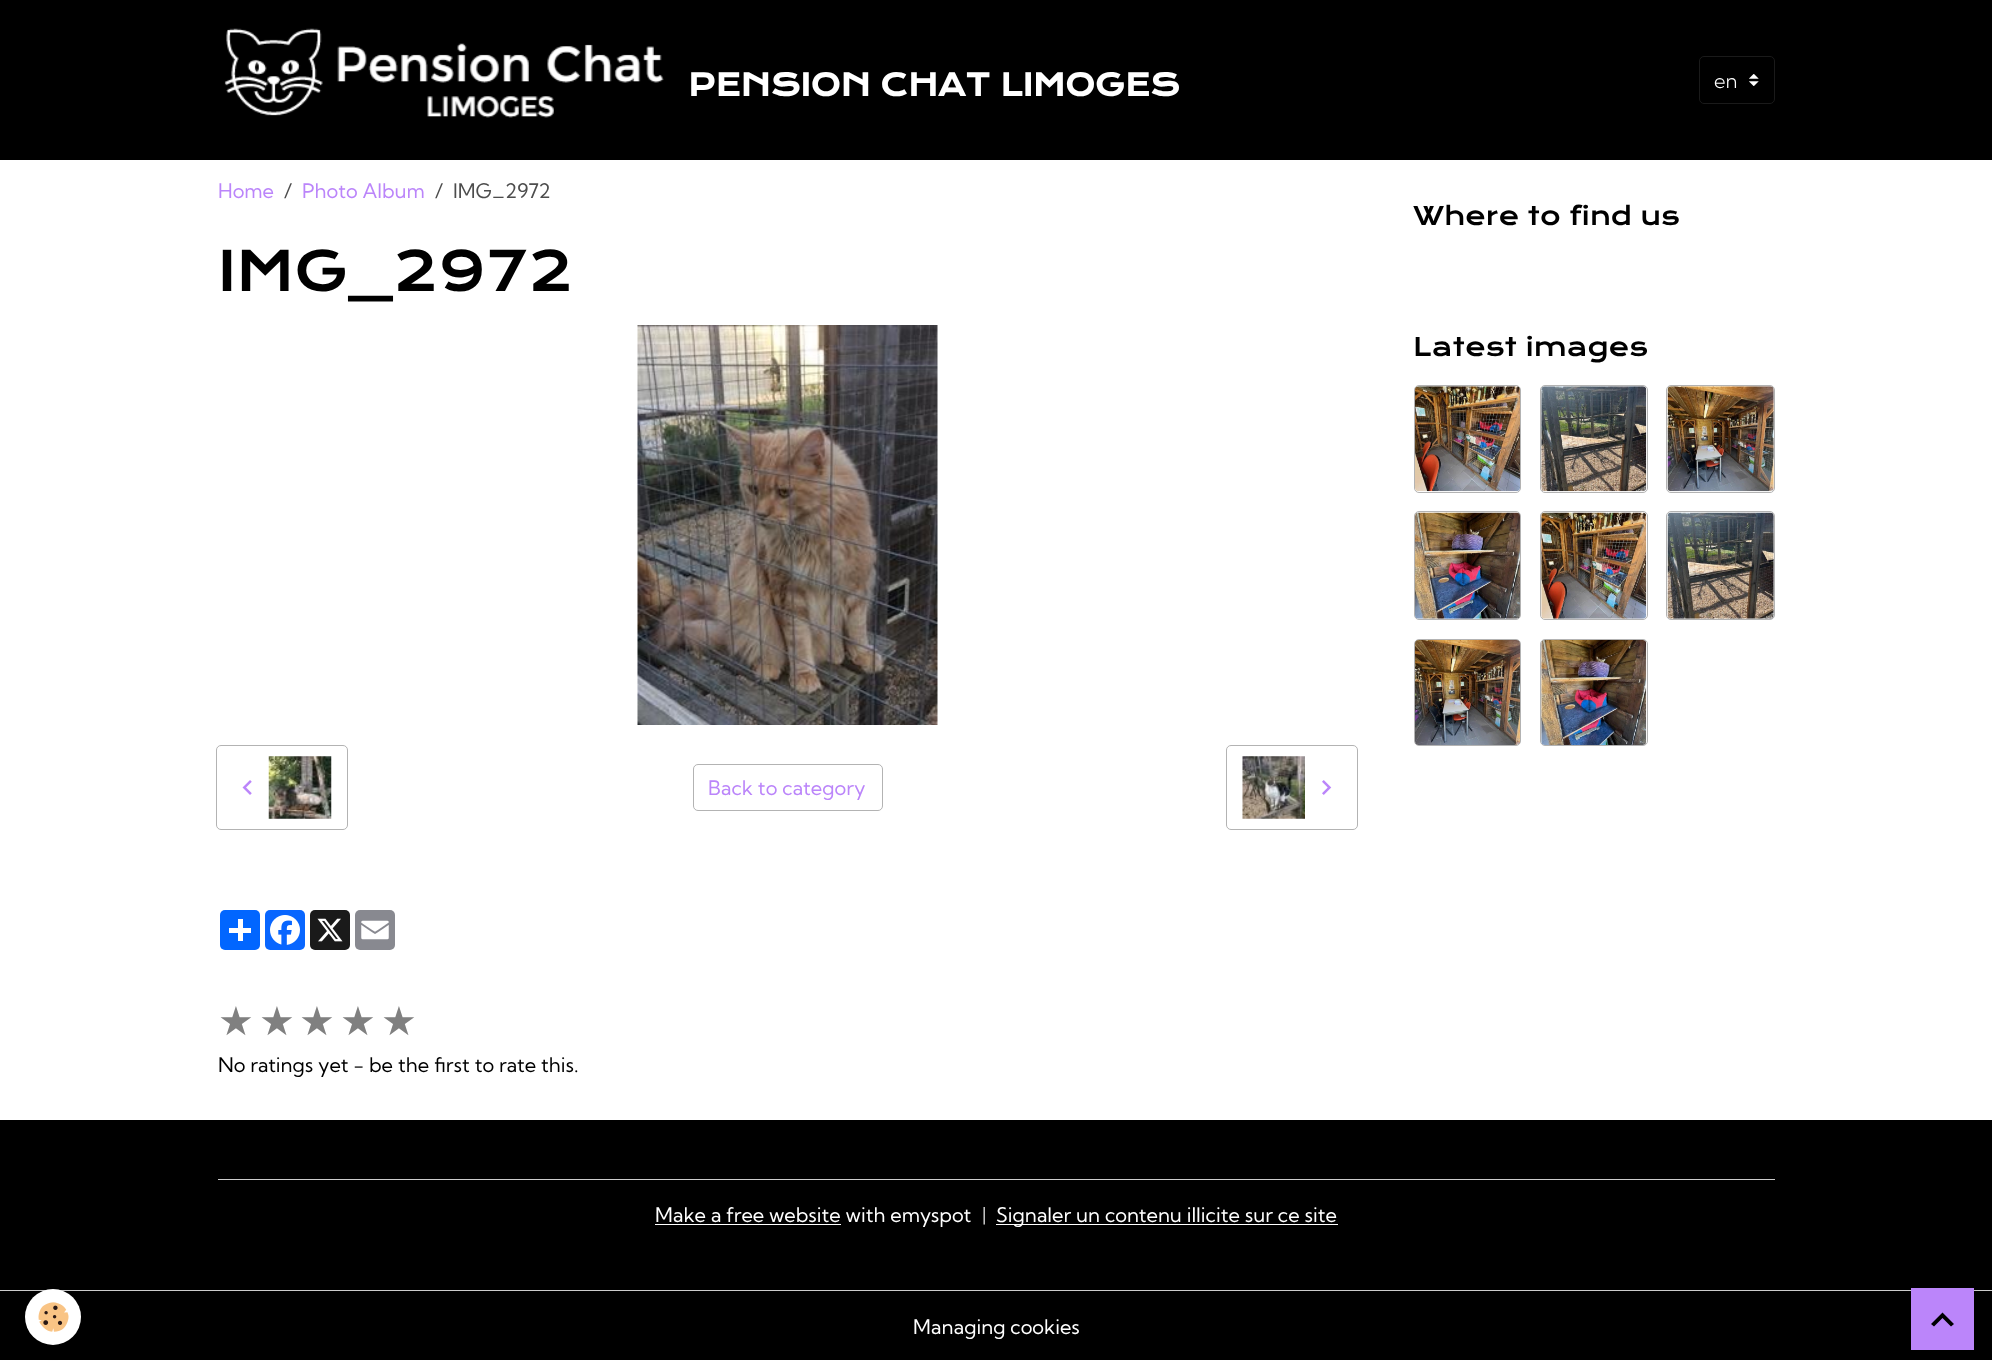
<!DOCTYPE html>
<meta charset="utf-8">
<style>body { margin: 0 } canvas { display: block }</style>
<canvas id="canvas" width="1992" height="1368"></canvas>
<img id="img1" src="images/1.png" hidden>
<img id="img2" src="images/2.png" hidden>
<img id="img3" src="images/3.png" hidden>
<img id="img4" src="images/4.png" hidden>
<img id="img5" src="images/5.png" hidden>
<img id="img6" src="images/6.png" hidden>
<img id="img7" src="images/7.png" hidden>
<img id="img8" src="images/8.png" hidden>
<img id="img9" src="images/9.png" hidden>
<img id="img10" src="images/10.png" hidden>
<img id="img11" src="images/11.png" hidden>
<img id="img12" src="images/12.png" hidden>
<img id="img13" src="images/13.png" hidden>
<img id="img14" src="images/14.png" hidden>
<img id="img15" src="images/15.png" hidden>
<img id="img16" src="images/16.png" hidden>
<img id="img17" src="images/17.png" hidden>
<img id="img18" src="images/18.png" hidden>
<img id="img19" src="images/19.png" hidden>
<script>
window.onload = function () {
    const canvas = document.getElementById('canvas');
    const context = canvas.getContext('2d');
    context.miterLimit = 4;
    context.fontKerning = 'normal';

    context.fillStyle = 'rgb(255, 255, 255)';
    context.fillRect(0, 0, 1992, 1368);
    context.fillStyle = 'rgb(0, 0, 0)';
    context.fillRect(0, 0, 1992, 160);
    context.drawImage(document.getElementById('img1'), 224, 28, 440, 90);
    context.drawImage(document.getElementById('img2'), 1749, 74, 10, 12);
    context.beginPath();
    context.roundRect(1699.5, 56.5, 75, 47, 4.5);
    context.strokeStyle = 'rgb(26, 26, 26)';
    context.stroke();
    context.drawImage(document.getElementById('img3'), 637, 325, 301, 400);
    context.beginPath();
    context.roundRect(216.5, 745.5, 131, 84, 4.5);
    context.strokeStyle = 'rgb(179, 179, 179)';
    context.stroke();
    context.drawImage(document.getElementById('img4'), 242, 780, 10, 15);
    context.drawImage(document.getElementById('img5'), 268, 756, 64, 63);
    context.beginPath();
    context.roundRect(693.5, 764.5, 189, 46, 4.5);
    context.stroke();
    context.beginPath();
    context.roundRect(1226.5, 745.5, 131, 84, 4.5);
    context.stroke();
    context.drawImage(document.getElementById('img6'), 1242, 756, 63, 63);
    context.drawImage(document.getElementById('img7'), 1322, 780, 10, 15);
    context.fillStyle = 'rgb(1, 102, 255)';
    context.beginPath();
    context.roundRect(220, 910, 40, 40, 5);
    context.fill();
    context.fillStyle = 'rgb(255, 255, 255)';
    context.fillRect(238, 919, 5, 22);
    context.fillRect(229, 928, 22, 5);
    context.fillStyle = 'rgb(8, 102, 255)';
    context.beginPath();
    context.roundRect(265, 910, 40, 40, 5);
    context.fill();
    context.drawImage(document.getElementById('img8'), 270, 915, 30, 30);
    context.fillStyle = 'rgb(26, 26, 26)';
    context.beginPath();
    context.roundRect(310, 910, 40, 40, 5);
    context.fill();
    context.drawImage(document.getElementById('img9'), 317, 918, 26, 24);
    context.fillStyle = 'rgb(136, 137, 144)';
    context.beginPath();
    context.roundRect(355, 910, 40, 40, 5);
    context.fill();
    context.drawImage(document.getElementById('img10'), 361, 920, 28, 20);
    context.beginPath();
    context.roundRect(1414.5, 385.5, 106, 107, 4.5);
    context.stroke();
    context.drawImage(document.getElementById('img11'), 1415, 386, 105, 106);
    context.beginPath();
    context.roundRect(1540.5, 385.5, 107, 107, 4.5);
    context.stroke();
    context.drawImage(document.getElementById('img12'), 1541, 386, 106, 106);
    context.beginPath();
    context.roundRect(1666.5, 385.5, 108, 107, 4.5);
    context.stroke();
    context.drawImage(document.getElementById('img13'), 1667, 386, 107, 106);
    context.beginPath();
    context.roundRect(1414.5, 511.5, 106, 108, 4.5);
    context.stroke();
    context.drawImage(document.getElementById('img14'), 1415, 512, 105, 107);
    context.beginPath();
    context.roundRect(1540.5, 511.5, 107, 108, 4.5);
    context.stroke();
    context.drawImage(document.getElementById('img15'), 1541, 512, 106, 107);
    context.beginPath();
    context.roundRect(1666.5, 511.5, 108, 108, 4.5);
    context.stroke();
    context.drawImage(document.getElementById('img16'), 1667, 512, 107, 107);
    context.beginPath();
    context.roundRect(1414.5, 639.5, 106, 106, 4.5);
    context.stroke();
    context.drawImage(document.getElementById('img17'), 1415, 640, 105, 105);
    context.beginPath();
    context.roundRect(1540.5, 639.5, 107, 106, 4.5);
    context.stroke();
    context.drawImage(document.getElementById('img18'), 1541, 640, 106, 105);
    context.fillStyle = 'rgb(0, 0, 0)';
    context.fillRect(0, 1120, 1992, 240);
    context.fillStyle = 'rgb(204, 204, 204)';
    context.fillRect(0, 1290, 1992, 1);
    context.fillStyle = 'rgba(0, 0, 0, 0.24)';
    context.filter = 'blur(6px)';
    context.beginPath();
    context.roundRect(25, 1293, 56, 56, 28);
    context.fill();
    context.filter = 'none';
    context.fillStyle = 'rgb(255, 255, 255)';
    context.beginPath();
    context.arc(53, 1317, 28, 0, 2 * Math.PI);
    context.fill();
    context.drawImage(document.getElementById('img19'), 38, 1302, 31, 30);
    context.fillStyle = 'rgb(204, 204, 204)';
    context.fillRect(218, 1179, 1557, 1);
    context.fillStyle = 'rgb(255, 255, 255)';
    context.fillRect(655, 1224, 186, 1);
    context.fillRect(996, 1224, 342, 1);
    context.fillStyle = 'rgb(187, 133, 250)';
    context.fillRect(1911, 1288, 63, 62);
    context.fillStyle = 'rgb(0, 0, 0)';
    context.beginPath();
    context.moveTo(1942.5, 1312.5);
    context.lineTo(1954, 1324);
    context.lineTo(1951, 1326.5);
    context.lineTo(1942.5, 1318);
    context.lineTo(1934, 1326.5);
    context.lineTo(1931, 1324);
    context.closePath();
    context.fill();
    context.font = 'bold 30px Krona One';
    context.fillStyle = 'rgb(255, 255, 255)';
    context.fillText('PENSION CHAT LIMOGES', 688, 96);
    context.font = '300 20px Kumbh Sans';
    context.fillText('en', 1714, 88);
    context.font = '20px Kumbh Sans';
    context.fillStyle = 'rgb(187, 133, 250)';
    context.fillText('Home', 218, 198);
    context.fillStyle = 'rgb(77, 77, 77)';
    context.fillText('/', 284, 198);
    context.fillStyle = 'rgb(187, 133, 250)';
    context.fillText('Photo Album', 302, 198);
    context.fillStyle = 'rgb(77, 77, 77)';
    context.fillText('/', 435, 198);
    context.fillText('IMG_2972', 453, 198);
    context.font = '54px Krona One';
    context.fillStyle = 'rgb(0, 0, 0)';
    context.fillText('IMG_2972', 218, 291);
    context.font = '20px Kumbh Sans';
    context.fillStyle = 'rgb(187, 133, 250)';
    context.fillText('Back to category', 708, 795);
    context.font = '40px DejaVu Sans';
    context.fillStyle = 'rgb(128, 128, 128)';
    context.fillText('★', 218, 1035);
    context.fillText('★', 259, 1035);
    context.fillText('★', 299, 1035);
    context.fillText('★', 340, 1035);
    context.fillText('★', 381, 1035);
    context.font = '20px Kumbh Sans';
    context.fillStyle = 'rgb(0, 0, 0)';
    context.fillText('No ratings yet - be the first to rate this.', 218, 1072);
    context.font = '25px Krona One';
    context.fillText('Where to find us', 1413, 225);
    context.fillText('Latest images', 1413, 356);
    context.font = '20px Kumbh Sans';
    context.fillStyle = 'rgb(255, 255, 255)';
    context.fillText('Make a free website with emyspot', 655, 1222);
    context.fillStyle = 'rgb(204, 204, 204)';
    context.fillText('|', 982, 1222);
    context.fillStyle = 'rgb(255, 255, 255)';
    context.fillText('Signaler un contenu illicite sur ce site', 996, 1222);
    context.fillText('Managing cookies', 913, 1334);
};
</script>
